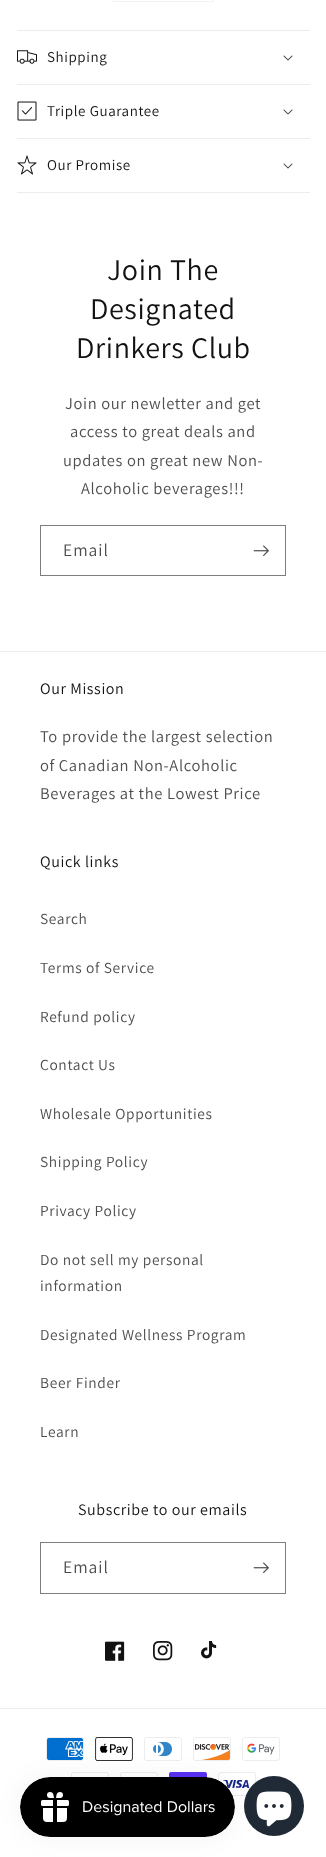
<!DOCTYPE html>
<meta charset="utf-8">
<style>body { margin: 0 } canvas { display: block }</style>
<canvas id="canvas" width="326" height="1857"></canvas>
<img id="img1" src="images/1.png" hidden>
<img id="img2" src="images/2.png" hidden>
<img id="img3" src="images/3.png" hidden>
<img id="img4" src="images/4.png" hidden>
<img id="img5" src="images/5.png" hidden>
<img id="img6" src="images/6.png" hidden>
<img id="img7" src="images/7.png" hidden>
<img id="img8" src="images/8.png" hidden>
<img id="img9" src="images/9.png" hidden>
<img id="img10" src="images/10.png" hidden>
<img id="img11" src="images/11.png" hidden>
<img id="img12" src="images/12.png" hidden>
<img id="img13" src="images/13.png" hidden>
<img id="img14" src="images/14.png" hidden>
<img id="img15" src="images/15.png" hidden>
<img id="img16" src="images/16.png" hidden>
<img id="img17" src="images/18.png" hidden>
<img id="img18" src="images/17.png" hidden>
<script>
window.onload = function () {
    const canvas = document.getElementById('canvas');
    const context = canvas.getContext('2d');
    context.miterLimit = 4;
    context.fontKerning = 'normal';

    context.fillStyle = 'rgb(255, 255, 255)';
    context.fillRect(0, 0, 326, 1857);
    context.strokeStyle = 'rgb(243, 243, 243)';
    context.strokeRect(112.5, -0.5, 101, 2);
    context.fillStyle = 'rgb(236, 236, 236)';
    context.fillRect(17, 30, 293, 1);
    context.fillRect(17, 84, 293, 1);
    context.drawImage(document.getElementById('img1'), 17, 50, 20, 14);
    context.drawImage(document.getElementById('img2'), 283, 55, 10, 6);
    context.fillRect(17, 138, 293, 1);
    context.drawImage(document.getElementById('img3'), 17, 101, 20, 20);
    context.drawImage(document.getElementById('img2'), 283, 109, 10, 6);
    context.fillRect(17, 192, 293, 1);
    context.drawImage(document.getElementById('img4'), 17, 155, 20, 20);
    context.drawImage(document.getElementById('img2'), 283, 163, 10, 6);
    context.strokeStyle = 'rgb(125, 125, 125)';
    context.strokeRect(40.5, 525.5, 245, 50);
    context.drawImage(document.getElementById('img5'), 253, 545, 16, 11);
    context.fillRect(0, 651, 326, 1);
    context.strokeRect(40.5, 1542.5, 245, 51);
    context.drawImage(document.getElementById('img5'), 253, 1562, 16, 11);
    context.drawImage(document.getElementById('img6'), 105, 1641, 20, 20);
    context.drawImage(document.getElementById('img7'), 153, 1641, 20, 20);
    context.drawImage(document.getElementById('img8'), 201, 1641, 16, 18);
    context.fillRect(0, 1708, 326, 1);
    context.drawImage(document.getElementById('img9'), 46, 1737, 38, 24);
    context.drawImage(document.getElementById('img10'), 95, 1737, 38, 24);
    context.drawImage(document.getElementById('img11'), 144, 1737, 38, 24);
    context.drawImage(document.getElementById('img12'), 193, 1737, 38, 24);
    context.drawImage(document.getElementById('img13'), 242, 1737, 38, 24);
    context.drawImage(document.getElementById('img14'), 71, 1772, 38, 5);
    context.drawImage(document.getElementById('img14'), 120, 1772, 38, 5);
    context.drawImage(document.getElementById('img15'), 169, 1772, 38, 6);
    context.drawImage(document.getElementById('img16'), 218, 1772, 38, 24);
    context.fillStyle = 'rgb(32, 42, 54)';
    context.beginPath();
    context.arc(274, 1806, 30, 0, 2 * Math.PI);
    context.fill();
    context.drawImage(document.getElementById('img17'), 256, 1791, 36, 36);
    context.fillStyle = 'rgba(0, 0, 0, 0.05)';
    context.filter = 'blur(12.5px)';
    context.beginPath();
    context.roundRect(20, 1777, 215, 60, 30);
    context.fill();
    context.filter = 'none';
    context.drawImage(document.getElementById('img18'), 20, 1777, 215, 60);
    context.letterSpacing = '0.6px';
    context.font = '15px Assistant';
    context.fillStyle = 'rgb(18, 18, 18)';
    context.fillText('Shipping', 47, 62);
    context.fillText('Triple Guarantee', 47, 116);
    context.fillText('Our Promise', 47, 170);
    context.font = '30px Assistant';
    context.fillText('Join The', 107, 280);
    context.fillText('Designated', 90, 319);
    context.fillText('Drinkers Club', 76, 358);
    context.letterSpacing = '0.65px';
    context.font = '16.5px Assistant';
    context.fillStyle = 'rgb(77, 77, 77)';
    context.fillText('Join our newletter and get', 65, 409);
    context.fillText('access to great deals and', 70, 437);
    context.fillText('updates on great new Non-', 63, 466);
    context.fillText('Alcoholic beverages!!!', 81, 494);
    context.letterSpacing = '1px';
    context.font = '17.5px Assistant';
    context.fillText('Email', 63, 556);
    context.letterSpacing = '0.6px';
    context.font = '16px Assistant';
    context.fillStyle = 'rgb(18, 18, 18)';
    context.fillText('Our Mission', 40, 694);
    context.letterSpacing = '0.65px';
    context.font = '16.5px Assistant';
    context.fillStyle = 'rgb(77, 77, 77)';
    context.fillText('To provide the largest selection', 40, 742);
    context.fillText('of Canadian Non-Alcoholic', 40, 771);
    context.fillText('Beverages at the Lowest Price', 40, 799);
    context.letterSpacing = '0.6px';
    context.font = '16px Assistant';
    context.fillStyle = 'rgb(18, 18, 18)';
    context.fillText('Quick links', 40, 867);
    context.letterSpacing = '0.65px';
    context.font = '15.4px Assistant';
    context.fillStyle = 'rgb(77, 77, 77)';
    context.fillText('Search', 40, 924);
    context.fillText('Terms of Service', 40, 973);
    context.fillText('Refund policy', 40, 1022);
    context.fillText('Contact Us', 40, 1070);
    context.fillText('Wholesale Opportunities', 40, 1119);
    context.fillText('Shipping Policy', 40, 1167);
    context.fillText('Privacy Policy', 40, 1216);
    context.fillText('Do not sell my personal', 40, 1265);
    context.fillText('information', 40, 1291);
    context.fillText('Designated Wellness Program', 40, 1340);
    context.fillText('Beer Finder', 40, 1388);
    context.fillText('Learn', 40, 1437);
    context.letterSpacing = '0.6px';
    context.font = '16px Assistant';
    context.fillStyle = 'rgb(18, 18, 18)';
    context.fillText('Subscribe to our emails', 78, 1515);
    context.letterSpacing = '1px';
    context.font = '17.5px Assistant';
    context.fillStyle = 'rgb(77, 77, 77)';
    context.fillText('Email', 63, 1573);
};
</script>
